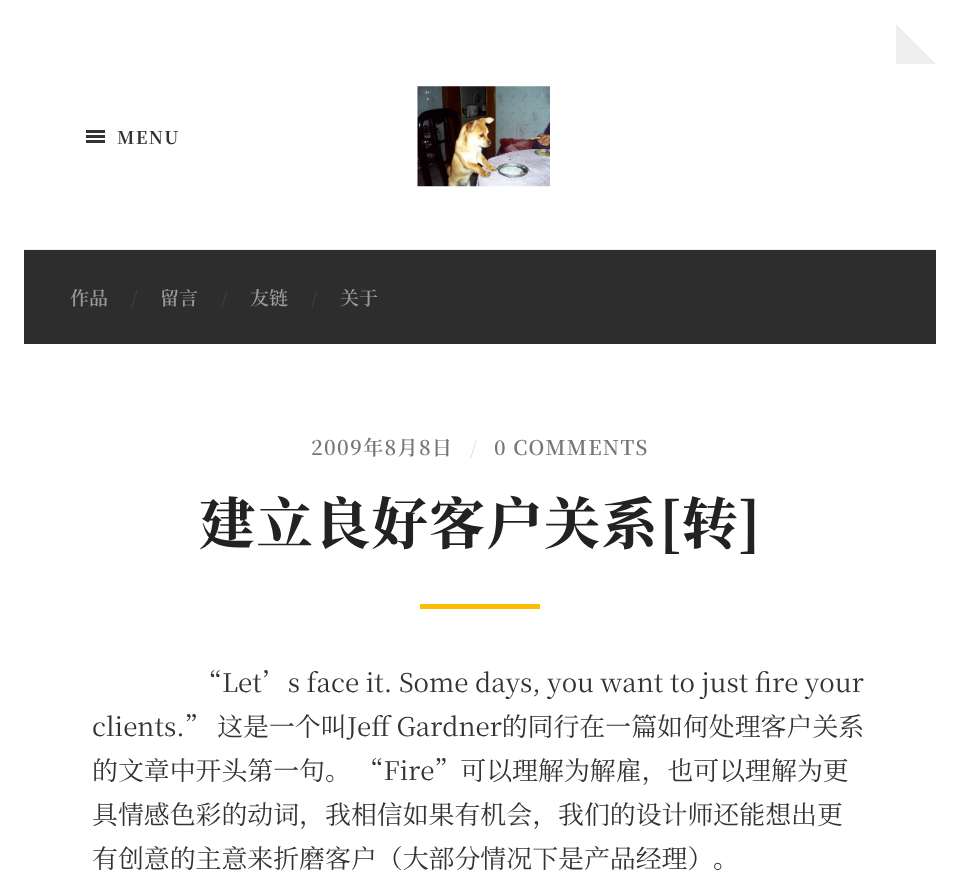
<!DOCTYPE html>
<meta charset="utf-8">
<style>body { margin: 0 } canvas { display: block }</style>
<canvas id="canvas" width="960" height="874"></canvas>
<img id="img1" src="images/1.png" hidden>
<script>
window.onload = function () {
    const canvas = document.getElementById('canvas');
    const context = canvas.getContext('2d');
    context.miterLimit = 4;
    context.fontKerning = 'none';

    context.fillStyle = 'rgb(255, 255, 255)';
    context.fillRect(0, 0, 960, 874);
    context.fillStyle = 'rgb(238, 238, 238)';
    context.beginPath();
    context.moveTo(936, 64);
    context.lineTo(896, 64);
    context.lineTo(916, 44);
    context.closePath();
    context.fill();
    context.beginPath();
    context.moveTo(896, 64);
    context.lineTo(896, 24);
    context.lineTo(916, 44);
    context.closePath();
    context.fill();
    context.fillRect(24, 249, 912, 1);
    context.fillStyle = 'rgb(51, 51, 51)';
    context.fillRect(86, 130, 19, 3);
    context.fillRect(86, 135, 19, 3);
    context.fillRect(86, 140, 19, 3);
    context.drawImage(document.getElementById('img1'), 417, 86, 133, 101);
    context.fillStyle = 'rgb(45, 45, 45)';
    context.fillRect(24, 250, 912, 94);
    context.fillStyle = 'rgb(255, 187, 0)';
    context.fillRect(420, 604, 120, 5);
    context.letterSpacing = '1.25px';
    context.font = 'bold 17.5px Noto Serif SC';
    context.fillStyle = 'rgb(51, 51, 51)';
    context.fillText('MENU', 117, 144);
    context.letterSpacing = '0px';
    context.font = '600 19px Noto Serif SC';
    context.fillStyle = 'rgb(153, 153, 153)';
    context.fillText('作品', 70, 305);
    context.font = '19px Noto Serif SC';
    context.fillStyle = 'rgb(68, 68, 68)';
    context.fillText('/', 131, 305);
    context.font = '600 19px Noto Serif SC';
    context.fillStyle = 'rgb(153, 153, 153)';
    context.fillText('留言', 160, 305);
    context.font = '19px Noto Serif SC';
    context.fillStyle = 'rgb(68, 68, 68)';
    context.fillText('/', 221, 305);
    context.font = '600 19px Noto Serif SC';
    context.fillStyle = 'rgb(153, 153, 153)';
    context.fillText('友链', 250, 305);
    context.font = '19px Noto Serif SC';
    context.fillStyle = 'rgb(68, 68, 68)';
    context.fillText('/', 311, 305);
    context.font = '600 19px Noto Serif SC';
    context.fillStyle = 'rgb(153, 153, 153)';
    context.fillText('关于', 340, 305);
    context.letterSpacing = '1.25px';
    context.font = '600 20.25px Noto Serif SC';
    context.fillStyle = 'rgb(118, 118, 118)';
    context.fillText('2009年8月8日', 311, 455);
    context.font = '300 20.25px Noto Serif SC';
    context.fillStyle = 'rgb(221, 221, 221)';
    context.fillText('/', 470, 455);
    context.font = '600 20.25px Noto Serif SC';
    context.fillStyle = 'rgb(118, 118, 118)';
    context.fillText('0 COMMENTS', 494, 455);
    context.font = '800 56.25px Noto Serif SC';
    context.fillStyle = 'rgb(34, 34, 34)';
    context.fillText('建立良好客户关系[转]', 199, 544);
    context.letterSpacing = '0px';
    context.font = '25.9px Noto Serif SC';
    context.fillStyle = 'rgb(51, 51, 51)';
    context.fillText('“Let’s face it. Some days, you want to just fire your', 196, 692);
    context.fillText('clients.” 这是一个叫Jeff Gardner的同行在一篇如何处理客户关系', 92, 736);
    context.fillText('的文章中开头第一句。 “Fire”可以理解为解雇，也可以理解为更', 92, 780);
    context.fillText('具情感色彩的动词，我相信如果有机会，我们的设计师还能想出更', 92, 824);
    context.fillText('有创意的主意来折磨客户（大部分情况下是产品经理）', 92, 868);
    context.fillText('。', 713, 868);
};
</script>
